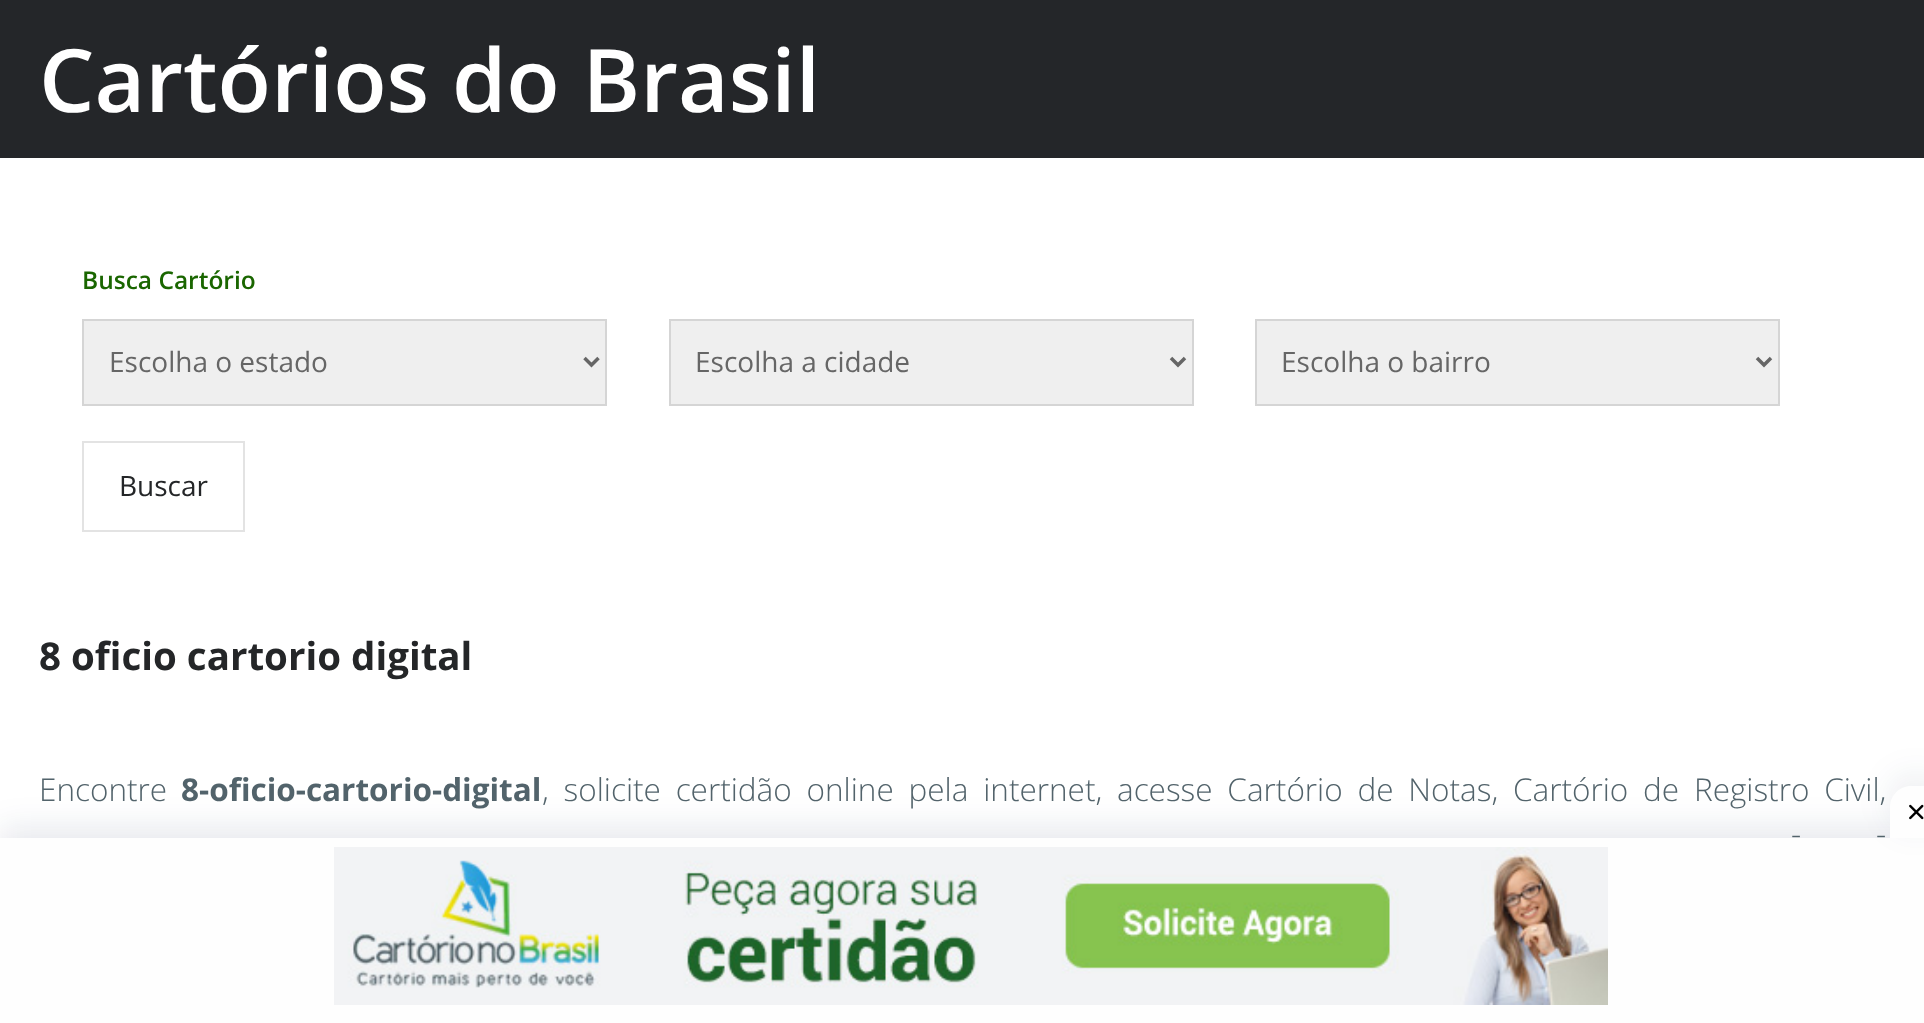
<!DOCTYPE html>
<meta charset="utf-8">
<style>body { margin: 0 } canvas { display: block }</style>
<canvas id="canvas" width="1924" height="1023"></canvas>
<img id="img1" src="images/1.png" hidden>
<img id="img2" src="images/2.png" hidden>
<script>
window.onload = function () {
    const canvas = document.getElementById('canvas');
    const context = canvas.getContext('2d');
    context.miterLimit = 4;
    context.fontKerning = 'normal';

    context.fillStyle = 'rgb(255, 255, 255)';
    context.fillRect(0, 0, 1924, 1023);
    context.fillStyle = 'rgb(36, 38, 41)';
    context.fillRect(0, 0, 1924, 158);
    context.fillStyle = 'rgb(239, 239, 239)';
    context.beginPath();
    context.rect(83, 320, 523, 85);
    context.fill();
    context.strokeStyle = 'rgb(213, 213, 213)';
    context.lineWidth = 2;
    context.stroke();
    context.beginPath();
    context.moveTo(584.5, 358);
    context.lineTo(591.5, 365);
    context.lineTo(598.5, 358);
    context.strokeStyle = 'rgb(102, 102, 102)';
    context.lineWidth = 3.5;
    context.stroke();
    context.beginPath();
    context.rect(670, 320, 523, 85);
    context.fill();
    context.strokeStyle = 'rgb(213, 213, 213)';
    context.lineWidth = 2;
    context.stroke();
    context.beginPath();
    context.moveTo(1171, 358);
    context.lineTo(1178, 365);
    context.lineTo(1185, 358);
    context.strokeStyle = 'rgb(102, 102, 102)';
    context.lineWidth = 3.5;
    context.stroke();
    context.beginPath();
    context.rect(1256, 320, 523, 85);
    context.fill();
    context.strokeStyle = 'rgb(213, 213, 213)';
    context.lineWidth = 2;
    context.stroke();
    context.beginPath();
    context.moveTo(1757, 358);
    context.lineTo(1764, 365);
    context.lineTo(1771, 358);
    context.strokeStyle = 'rgb(102, 102, 102)';
    context.lineWidth = 3.5;
    context.stroke();
    context.strokeStyle = 'rgb(227, 227, 227)';
    context.lineWidth = 2;
    context.strokeRect(83, 442, 161, 89);
    context.fillStyle = 'rgba(9, 32, 76, 0.1)';
    context.filter = 'blur(16px)';
    context.beginPath();
    context.rect(0, 828, 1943, 185);
    context.fill();
    context.filter = 'none';
    context.fillStyle = 'rgb(254, 254, 254)';
    context.fillRect(0, 838, 1924, 185);
    context.fillStyle = 'rgba(9, 32, 76, 0.08)';
    context.filter = 'blur(16px)';
    context.beginPath();
    context.roundRect(1890, 775, 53, 53, 21);
    context.fill();
    context.filter = 'none';
    context.fillStyle = 'rgb(254, 254, 254)';
    context.beginPath();
    context.moveTo(1911, 786);
    context.lineTo(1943, 786);
    context.lineTo(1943, 838);
    context.lineTo(1890, 838);
    context.lineTo(1890, 807);
    context.bezierCurveTo(1890, 795.5, 1899.5, 786, 1911, 786);
    context.closePath();
    context.fill();
    context.drawImage(document.getElementById('img1'), 1909, 804, 15, 16);
    context.drawImage(document.getElementById('img2'), 334, 847, 1274, 158);
    context.font = '600 87.5px Open Sans';
    context.fillStyle = 'rgb(255, 255, 255)';
    context.fillText('Cartórios do Brasil', 39, 112);
    context.font = '600 24.5px Open Sans';
    context.fillStyle = 'rgb(26, 102, 0)';
    context.fillText('Busca Cartório', 82, 289);
    context.font = '28px Open Sans';
    context.fillStyle = 'rgb(102, 102, 102)';
    context.fillText('Escolha o estado', 109, 372);
    context.fillText('Escolha a cidade', 695, 372);
    context.fillText('Escolha o bairro', 1281, 372);
    context.fillStyle = 'rgb(36, 38, 40)';
    context.fillText('Buscar', 119, 496);
    context.font = 'bold 38.5px Open Sans';
    context.fillText('8 oficio cartorio digital', 39, 670);
    context.font = '300 31.5px Open Sans';
    context.fillStyle = 'rgb(82, 99, 107)';
    context.fillText('Encontre', 39, 801);
    context.font = 'bold 31.5px Open Sans';
    context.fillText('8-oficio-cartorio-digital', 181, 801);
    context.wordSpacing = '6.6px';
    context.font = '300 31.5px Open Sans';
    context.fillText(', solicite certidão online pela internet, acesse Cartório de Notas, Cartório de Registro Civil,', 542, 801);
    context.wordSpacing = '1px';
    context.fillText('-', 1791, 845);
    context.fillText('-', 1876, 845);
};
</script>
